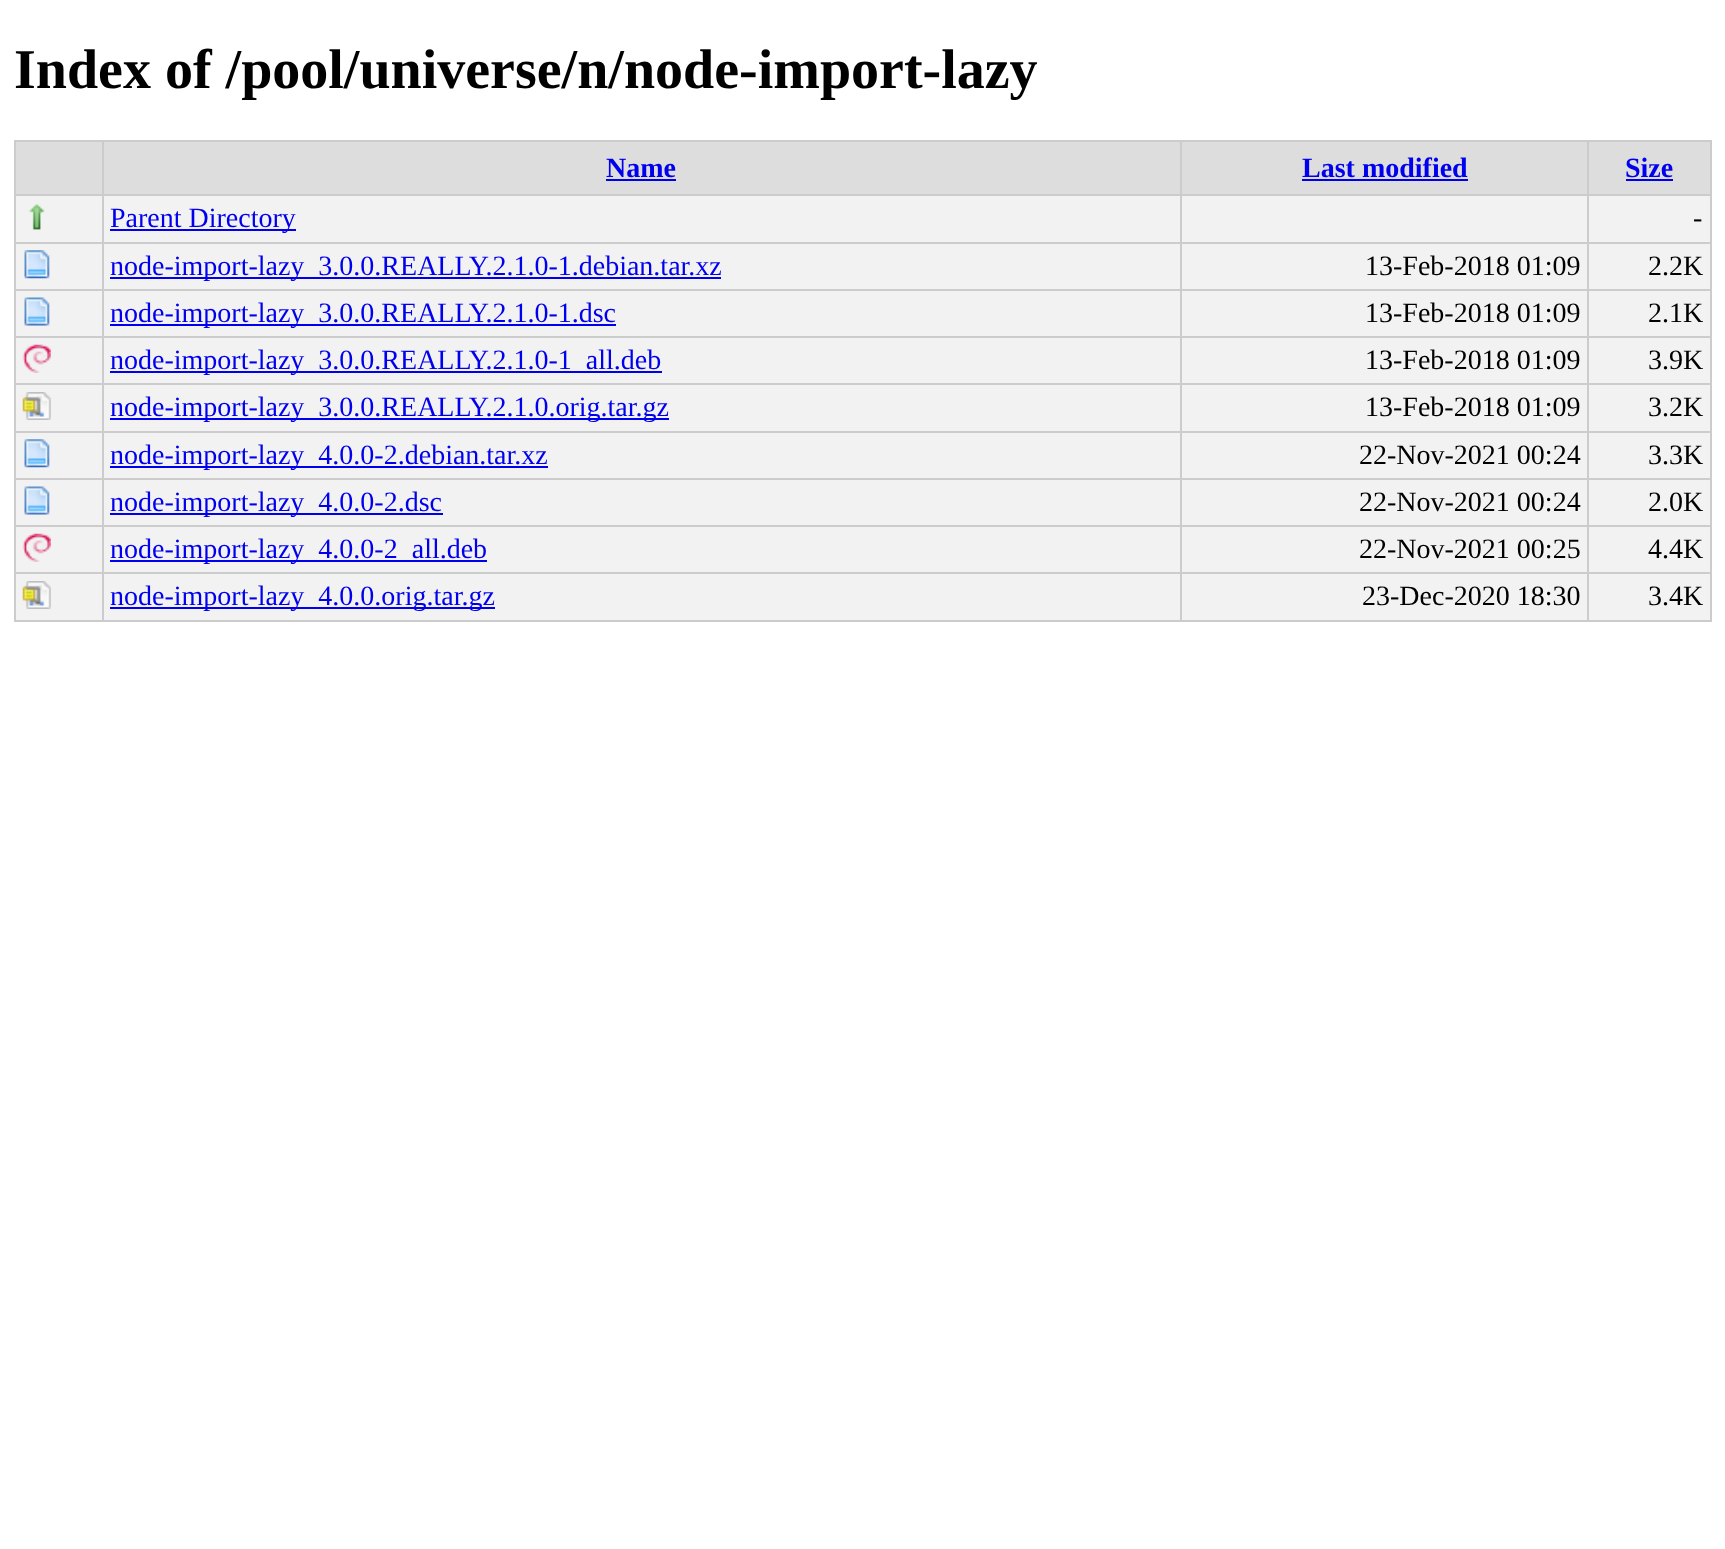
<!DOCTYPE html>
<meta charset="utf-8">
<style>body { margin: 0 } canvas { display: block }</style>
<canvas id="canvas" width="1725" height="1549"></canvas>
<img id="img1" src="images/1.png" hidden>
<img id="img2" src="images/2.png" hidden>
<img id="img3" src="images/3.png" hidden>
<img id="img4" src="images/4.png" hidden>
<img id="img5" src="images/5.png" hidden>
<script>
window.onload = function () {
    const canvas = document.getElementById('canvas');
    const context = canvas.getContext('2d');
    context.miterLimit = 4;
    context.fontKerning = 'normal';

    context.fillStyle = 'rgb(255, 255, 255)';
    context.fillRect(0, 0, 1725, 1549);
    context.fillStyle = 'rgb(221, 221, 221)';
    context.fillRect(16, 142, 86, 52);
    context.fillStyle = 'rgb(204, 204, 204)';
    context.fillRect(1587, 140, 125, 2);
    context.fillRect(1587, 194, 125, 2);
    context.fillStyle = 'rgb(242, 242, 242)';
    context.fillRect(16, 196, 1694, 46);
    context.fillStyle = 'rgb(204, 204, 204)';
    context.fillRect(1587, 242, 125, 2);
    context.fillStyle = 'rgb(242, 242, 242)';
    context.fillRect(16, 244, 1694, 45);
    context.fillStyle = 'rgb(204, 204, 204)';
    context.fillRect(1587, 289, 125, 2);
    context.fillStyle = 'rgb(242, 242, 242)';
    context.fillRect(16, 291, 1694, 45);
    context.fillStyle = 'rgb(204, 204, 204)';
    context.fillRect(1587, 336, 125, 2);
    context.fillStyle = 'rgb(242, 242, 242)';
    context.fillRect(16, 338, 1694, 45);
    context.fillStyle = 'rgb(204, 204, 204)';
    context.fillRect(1587, 383, 125, 2);
    context.fillStyle = 'rgb(242, 242, 242)';
    context.fillRect(16, 385, 1694, 46);
    context.fillStyle = 'rgb(204, 204, 204)';
    context.fillRect(1587, 431, 125, 2);
    context.fillStyle = 'rgb(242, 242, 242)';
    context.fillRect(16, 433, 1694, 45);
    context.fillStyle = 'rgb(204, 204, 204)';
    context.fillRect(1587, 478, 125, 2);
    context.fillStyle = 'rgb(242, 242, 242)';
    context.fillRect(16, 480, 1694, 45);
    context.fillStyle = 'rgb(204, 204, 204)';
    context.fillRect(1587, 525, 125, 2);
    context.fillStyle = 'rgb(242, 242, 242)';
    context.fillRect(16, 527, 1694, 45);
    context.fillStyle = 'rgb(204, 204, 204)';
    context.fillRect(1587, 572, 125, 2);
    context.fillStyle = 'rgb(242, 242, 242)';
    context.fillRect(16, 574, 1694, 46);
    context.fillStyle = 'rgb(204, 204, 204)';
    context.fillRect(1710, 572, 2, 49);
    context.fillRect(1587, 620, 125, 2);
    context.fillRect(1587, 572, 2, 49);
    context.fillRect(1180, 572, 409, 2);
    context.fillRect(1587, 525, 2, 49);
    context.fillRect(1180, 525, 409, 2);
    context.fillRect(1587, 478, 2, 49);
    context.fillRect(1180, 478, 409, 2);
    context.fillRect(1587, 431, 2, 49);
    context.fillRect(1180, 431, 409, 2);
    context.fillRect(1587, 383, 2, 49);
    context.fillRect(1180, 383, 409, 2);
    context.fillRect(1587, 336, 2, 49);
    context.fillRect(1180, 336, 409, 2);
    context.fillRect(1587, 289, 2, 49);
    context.fillRect(1180, 289, 409, 2);
    context.fillRect(1587, 242, 2, 49);
    context.fillRect(1180, 242, 409, 2);
    context.fillRect(1587, 194, 2, 49);
    context.fillRect(1180, 194, 409, 2);
    context.fillRect(1587, 140, 2, 56);
    context.fillRect(1180, 140, 409, 2);
    context.fillRect(1180, 620, 409, 2);
    context.fillRect(1180, 572, 2, 49);
    context.fillRect(102, 572, 1079, 2);
    context.fillRect(1180, 525, 2, 49);
    context.fillRect(102, 525, 1079, 2);
    context.fillRect(1180, 478, 2, 49);
    context.fillRect(102, 478, 1079, 2);
    context.fillRect(1180, 431, 2, 49);
    context.fillRect(102, 431, 1079, 2);
    context.fillRect(1180, 383, 2, 49);
    context.fillRect(102, 383, 1079, 2);
    context.fillRect(1180, 336, 2, 49);
    context.fillRect(102, 336, 1079, 2);
    context.fillRect(1180, 289, 2, 49);
    context.fillRect(102, 289, 1079, 2);
    context.fillRect(1180, 242, 2, 49);
    context.fillRect(102, 242, 1079, 2);
    context.fillRect(1180, 194, 2, 49);
    context.fillRect(102, 194, 1079, 2);
    context.fillRect(1180, 140, 2, 56);
    context.fillRect(102, 140, 1079, 2);
    context.fillRect(102, 620, 1079, 2);
    context.fillRect(102, 572, 2, 49);
    context.fillRect(14, 572, 89, 2);
    context.fillRect(102, 525, 2, 49);
    context.fillRect(14, 525, 89, 2);
    context.fillRect(102, 478, 2, 49);
    context.fillRect(14, 478, 89, 2);
    context.fillRect(102, 431, 2, 49);
    context.fillRect(14, 431, 89, 2);
    context.fillRect(102, 383, 2, 49);
    context.fillRect(14, 383, 89, 2);
    context.fillRect(102, 336, 2, 49);
    context.fillRect(14, 336, 89, 2);
    context.fillRect(102, 289, 2, 49);
    context.fillRect(14, 289, 89, 2);
    context.fillRect(102, 242, 2, 49);
    context.fillRect(14, 242, 89, 2);
    context.fillRect(102, 194, 2, 49);
    context.fillRect(14, 194, 89, 2);
    context.fillRect(102, 140, 2, 56);
    context.fillRect(14, 140, 89, 2);
    context.fillRect(14, 620, 89, 2);
    context.fillRect(14, 572, 2, 49);
    context.fillRect(14, 525, 2, 49);
    context.fillRect(14, 478, 2, 49);
    context.fillRect(14, 431, 2, 49);
    context.fillRect(14, 383, 2, 49);
    context.fillRect(14, 336, 2, 49);
    context.fillRect(14, 289, 2, 49);
    context.fillRect(14, 242, 2, 49);
    context.fillRect(14, 194, 2, 49);
    context.fillRect(14, 140, 2, 56);
    context.fillStyle = 'rgb(221, 221, 221)';
    context.fillRect(104, 142, 1076, 52);
    context.fillStyle = 'rgb(0, 0, 238)';
    context.fillRect(606, 179, 70, 2);
    context.fillStyle = 'rgb(221, 221, 221)';
    context.fillRect(1182, 142, 405, 52);
    context.fillStyle = 'rgb(0, 0, 238)';
    context.fillRect(1302, 179, 166, 2);
    context.fillStyle = 'rgb(221, 221, 221)';
    context.fillRect(1589, 142, 121, 52);
    context.fillStyle = 'rgb(204, 204, 204)';
    context.fillRect(1710, 525, 2, 49);
    context.fillRect(1710, 478, 2, 49);
    context.fillRect(1710, 431, 2, 49);
    context.fillRect(1710, 383, 2, 49);
    context.fillRect(1710, 336, 2, 49);
    context.fillRect(1710, 289, 2, 49);
    context.fillRect(1710, 242, 2, 49);
    context.fillRect(1710, 194, 2, 49);
    context.fillRect(1710, 140, 2, 56);
    context.fillStyle = 'rgb(0, 0, 238)';
    context.fillRect(1626, 179, 47, 2);
    context.drawImage(document.getElementById('img1'), 29, 204, 16, 26);
    context.fillRect(110, 229, 186, 2);
    context.drawImage(document.getElementById('img2'), 24, 250, 26, 29);
    context.fillRect(110, 277, 611, 2);
    context.drawImage(document.getElementById('img3'), 24, 297, 26, 29);
    context.fillRect(110, 324, 506, 2);
    context.drawImage(document.getElementById('img4'), 22, 344, 29, 29);
    context.fillRect(110, 371, 552, 2);
    context.drawImage(document.getElementById('img5'), 22, 392, 29, 28);
    context.fillRect(110, 418, 559, 2);
    context.drawImage(document.getElementById('img2'), 24, 439, 26, 29);
    context.fillRect(110, 466, 438, 2);
    context.drawImage(document.getElementById('img3'), 24, 486, 26, 29);
    context.fillRect(110, 513, 333, 2);
    context.drawImage(document.getElementById('img4'), 22, 533, 29, 29);
    context.fillRect(110, 560, 377, 2);
    context.drawImage(document.getElementById('img5'), 22, 581, 29, 28);
    context.fillRect(110, 607, 385, 2);
    context.font = 'bold 56px Liberation Serif';
    context.fillStyle = 'rgb(0, 0, 0)';
    context.fillText('Index of /pool/universe/n/node-import-lazy', 14, 88);
    context.font = 'bold 28px Liberation Serif';
    context.fillStyle = 'rgb(0, 0, 238)';
    context.fillText('Name', 606, 177);
    context.fillText('Last modified', 1302, 177);
    context.fillText('Size', 1625, 177);
    context.font = '28px Liberation Serif';
    context.fillText('Parent Directory', 110, 227);
    context.fillStyle = 'rgb(0, 0, 0)';
    context.fillText('-', 1693, 227);
    context.fillStyle = 'rgb(0, 0, 238)';
    context.fillText('node-import-lazy_3.0.0.REALLY.2.1.0-1.debian.tar.xz', 110, 275);
    context.fillStyle = 'rgb(0, 0, 0)';
    context.fillText('13-Feb-2018 01:09', 1365, 275);
    context.fillText('2.2K', 1648, 275);
    context.fillStyle = 'rgb(0, 0, 238)';
    context.fillText('node-import-lazy_3.0.0.REALLY.2.1.0-1.dsc', 110, 322);
    context.fillStyle = 'rgb(0, 0, 0)';
    context.fillText('13-Feb-2018 01:09', 1365, 322);
    context.fillText('2.1K', 1648, 322);
    context.fillStyle = 'rgb(0, 0, 238)';
    context.fillText('node-import-lazy_3.0.0.REALLY.2.1.0-1_all.deb', 110, 369);
    context.fillStyle = 'rgb(0, 0, 0)';
    context.fillText('13-Feb-2018 01:09', 1365, 369);
    context.fillText('3.9K', 1648, 369);
    context.fillStyle = 'rgb(0, 0, 238)';
    context.fillText('node-import-lazy_3.0.0.REALLY.2.1.0.orig.tar.gz', 110, 416);
    context.fillStyle = 'rgb(0, 0, 0)';
    context.fillText('13-Feb-2018 01:09', 1365, 416);
    context.fillText('3.2K', 1648, 416);
    context.fillStyle = 'rgb(0, 0, 238)';
    context.fillText('node-import-lazy_4.0.0-2.debian.tar.xz', 110, 464);
    context.fillStyle = 'rgb(0, 0, 0)';
    context.fillText('22-Nov-2021 00:24', 1359, 464);
    context.fillText('3.3K', 1648, 464);
    context.fillStyle = 'rgb(0, 0, 238)';
    context.fillText('node-import-lazy_4.0.0-2.dsc', 110, 511);
    context.fillStyle = 'rgb(0, 0, 0)';
    context.fillText('22-Nov-2021 00:24', 1359, 511);
    context.fillText('2.0K', 1648, 511);
    context.fillStyle = 'rgb(0, 0, 238)';
    context.fillText('node-import-lazy_4.0.0-2_all.deb', 110, 558);
    context.fillStyle = 'rgb(0, 0, 0)';
    context.fillText('22-Nov-2021 00:25', 1359, 558);
    context.fillText('4.4K', 1648, 558);
    context.fillStyle = 'rgb(0, 0, 238)';
    context.fillText('node-import-lazy_4.0.0.orig.tar.gz', 110, 605);
    context.fillStyle = 'rgb(0, 0, 0)';
    context.fillText('23-Dec-2020 18:30', 1362, 605);
    context.fillText('3.4K', 1648, 605);
};
</script>
